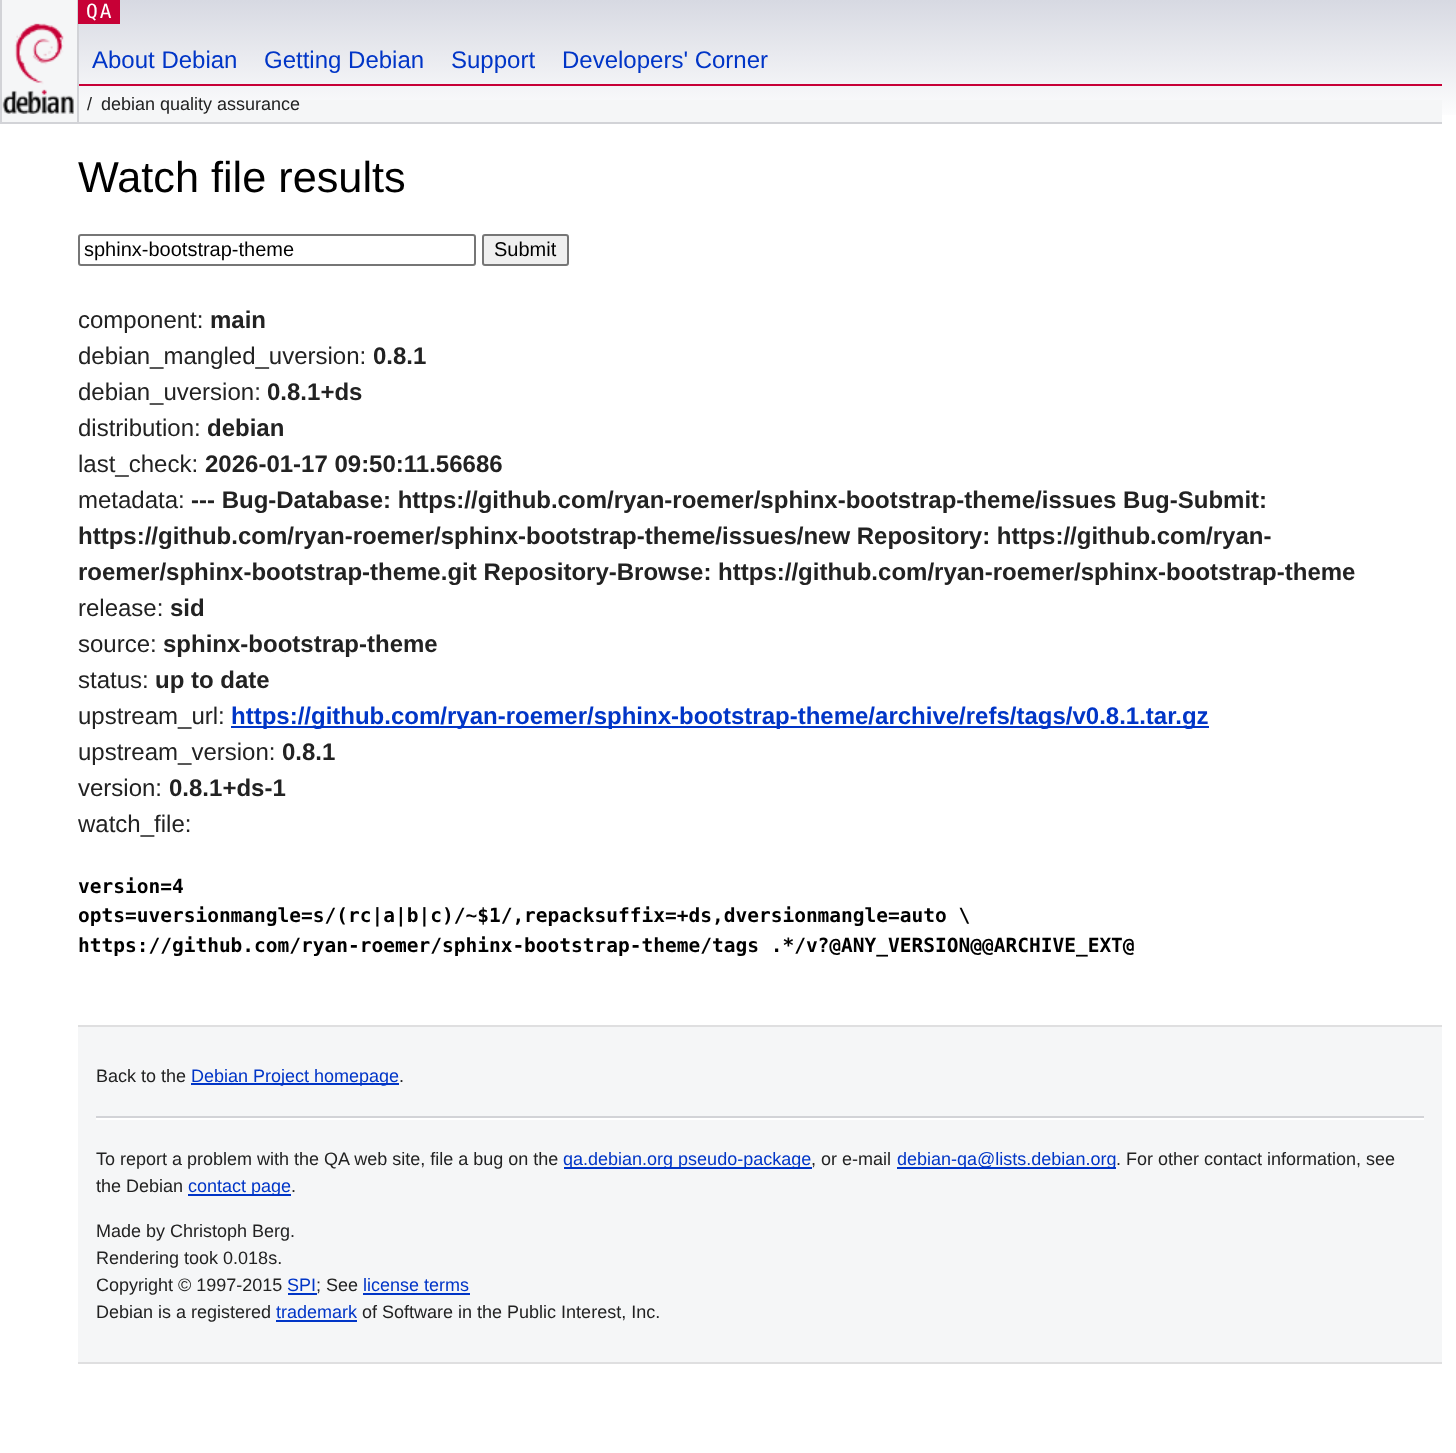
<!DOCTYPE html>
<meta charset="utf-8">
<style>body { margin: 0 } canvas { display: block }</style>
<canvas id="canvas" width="1456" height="1453"></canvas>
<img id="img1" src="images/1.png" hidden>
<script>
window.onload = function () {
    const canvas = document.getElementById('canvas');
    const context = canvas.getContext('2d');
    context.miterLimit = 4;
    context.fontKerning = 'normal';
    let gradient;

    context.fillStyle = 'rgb(255, 255, 255)';
    context.fillRect(0, 0, 1456, 1453);
    gradient = context.createLinearGradient(728, 0, 728, 123);
    gradient.addColorStop(0, 'rgb(215, 217, 226)');
    gradient.addColorStop(1, 'rgb(255, 255, 255)');
    context.fillStyle = gradient;
    context.fillRect(79, 0, 1377, 115);
    context.fillStyle = 'rgb(245, 246, 247)';
    context.fillRect(2, 0, 75, 122);
    context.fillStyle = 'rgb(199, 0, 54)';
    context.fillRect(78, 84, 1364, 2);
    context.fillStyle = 'rgb(210, 211, 215)';
    context.fillRect(78, 122, 1364, 2);
    context.fillRect(77, 0, 2, 123);
    context.fillRect(0, 122, 78, 2);
    context.fillRect(0, 0, 2, 123);
    context.drawImage(document.getElementById('img1'), 2, 23, 72, 91);
    context.fillStyle = 'rgb(199, 0, 54)';
    context.fillRect(78, 0, 42, 24);
    context.fillStyle = 'rgb(245, 246, 247)';
    context.fillRect(79, 100, 1363, 22);
    context.beginPath();
    context.roundRect(79, 235, 396, 30, 2);
    context.strokeStyle = 'rgb(118, 118, 118)';
    context.lineWidth = 2;
    context.stroke();
    context.fillStyle = 'rgb(239, 239, 239)';
    context.beginPath();
    context.roundRect(483, 235, 85, 30, 2);
    context.fill();
    context.stroke();
    context.fillStyle = 'rgb(0, 53, 199)';
    context.fillRect(231, 726, 978, 2);
    context.fillStyle = 'rgb(245, 246, 247)';
    context.fillRect(78, 1027, 1364, 335);
    context.fillStyle = 'rgb(223, 223, 224)';
    context.fillRect(78, 1025, 1364, 2);
    context.fillRect(78, 1362, 1364, 2);
    context.fillStyle = 'rgb(0, 53, 199)';
    context.fillRect(191, 1083, 208, 2);
    context.fillStyle = 'rgb(210, 211, 215)';
    context.fillRect(96, 1116, 1328, 2);
    context.fillStyle = 'rgb(255, 255, 255)';
    context.fillRect(96, 1118, 1328, 2);
    context.fillStyle = 'rgb(0, 53, 199)';
    context.fillRect(564, 1167, 248, 2);
    context.fillRect(897, 1167, 219, 2);
    context.fillRect(188, 1194, 103, 2);
    context.fillRect(288, 1293, 29, 2);
    context.fillRect(363, 1293, 107, 2);
    context.fillRect(276, 1320, 81, 2);
    context.letterSpacing = '2px';
    context.font = '19.5px DejaVu Sans Mono';
    context.fillStyle = 'rgb(255, 255, 255)';
    context.fillText('QA', 86, 18);
    context.letterSpacing = '0px';
    context.font = '24px Liberation Sans';
    context.fillStyle = 'rgb(0, 53, 199)';
    context.fillText('About Debian', 92, 68);
    context.fillText('Getting Debian', 264, 68);
    context.fillText('Support', 451, 68);
    context.fillText('Developers\' Corner', 562, 68);
    context.font = '18px Liberation Sans';
    context.fillStyle = 'rgb(34, 34, 34)';
    context.fillText('/', 87, 110);
    context.fillText('debian quality assurance', 101, 110);
    context.font = '43.25px Liberation Sans';
    context.fillStyle = 'rgb(0, 0, 0)';
    context.fillText('Watch file results', 78, 192);
    context.font = '20px Liberation Sans';
    context.fillText('sphinx-bootstrap-theme', 84, 256);
    context.fillText('Submit', 494, 256);
    context.font = '24px Liberation Sans';
    context.fillStyle = 'rgb(34, 34, 34)';
    context.fillText('component:', 78, 328);
    context.font = 'bold 24px Liberation Sans';
    context.fillText('main', 210, 328);
    context.font = '24px Liberation Sans';
    context.fillText('debian_mangled_uversion:', 78, 364);
    context.font = 'bold 24px Liberation Sans';
    context.fillText('0.8.1', 373, 364);
    context.font = '24px Liberation Sans';
    context.fillText('debian_uversion:', 78, 400);
    context.font = 'bold 24px Liberation Sans';
    context.fillText('0.8.1+ds', 267, 400);
    context.font = '24px Liberation Sans';
    context.fillText('distribution:', 78, 436);
    context.font = 'bold 24px Liberation Sans';
    context.fillText('debian', 207, 436);
    context.font = '24px Liberation Sans';
    context.fillText('last_check:', 78, 472);
    context.font = 'bold 24px Liberation Sans';
    context.fillText('2026-01-17 09:50:11.56686', 205, 472);
    context.font = '24px Liberation Sans';
    context.fillText('metadata:', 78, 508);
    context.font = 'bold 24px Liberation Sans';
    context.fillText('--- Bug-Database: https://github.com/ryan-roemer/sphinx-bootstrap-theme/issues Bug-Submit:', 191, 508);
    context.fillText('https://github.com/ryan-roemer/sphinx-bootstrap-theme/issues/new Repository: https://github.com/ryan-', 78, 544);
    context.fillText('roemer/sphinx-bootstrap-theme.git Repository-Browse: https://github.com/ryan-roemer/sphinx-bootstrap-theme', 78, 580);
    context.font = '24px Liberation Sans';
    context.fillText('release:', 78, 616);
    context.font = 'bold 24px Liberation Sans';
    context.fillText('sid', 170, 616);
    context.font = '24px Liberation Sans';
    context.fillText('source:', 78, 652);
    context.font = 'bold 24px Liberation Sans';
    context.fillText('sphinx-bootstrap-theme', 163, 652);
    context.font = '24px Liberation Sans';
    context.fillText('status:', 78, 688);
    context.font = 'bold 24px Liberation Sans';
    context.fillText('up to date', 155, 688);
    context.font = '24px Liberation Sans';
    context.fillText('upstream_url:', 78, 724);
    context.font = 'bold 24px Liberation Sans';
    context.fillStyle = 'rgb(0, 53, 199)';
    context.fillText('https://github.com/ryan-roemer/sphinx-bootstrap-theme/archive/refs/tags/v0.8.1.tar.gz', 231, 724);
    context.font = '24px Liberation Sans';
    context.fillStyle = 'rgb(34, 34, 34)';
    context.fillText('upstream_version:', 78, 760);
    context.font = 'bold 24px Liberation Sans';
    context.fillText('0.8.1', 282, 760);
    context.font = '24px Liberation Sans';
    context.fillText('version:', 78, 796);
    context.font = 'bold 24px Liberation Sans';
    context.fillText('0.8.1+ds-1', 169, 796);
    context.font = '24px Liberation Sans';
    context.fillText('watch_file:', 78, 832);
    context.font = 'bold 19.5px DejaVu Sans Mono';
    context.fillStyle = 'rgb(0, 0, 0)';
    context.fillText('version=4', 78, 893);
    context.fillText('opts=uversionmangle=s/(rc|a|b|c)/~$1/,repacksuffix=+ds,dversionmangle=auto \\', 78, 922);
    context.fillText('https://github.com/ryan-roemer/sphinx-bootstrap-theme/tags .*/v?@ANY_VERSION@@ARCHIVE_EXT@', 78, 952);
    context.font = '18px Liberation Sans';
    context.fillStyle = 'rgb(34, 34, 34)';
    context.fillText('Back to the', 96, 1082);
    context.fillStyle = 'rgb(0, 53, 199)';
    context.fillText('Debian Project homepage', 191, 1082);
    context.fillStyle = 'rgb(34, 34, 34)';
    context.fillText('.', 399, 1082);
    context.fillText('To report a problem with the QA web site, file a bug on the', 96, 1165);
    context.fillStyle = 'rgb(0, 53, 199)';
    context.fillText('qa.debian.org pseudo-package', 563, 1165);
    context.fillStyle = 'rgb(34, 34, 34)';
    context.fillText(', or e-mail', 811, 1165);
    context.fillStyle = 'rgb(0, 53, 199)';
    context.fillText('debian-qa@lists.debian.org', 897, 1165);
    context.fillStyle = 'rgb(34, 34, 34)';
    context.fillText('. For other contact information, see', 1116, 1165);
    context.fillText('the Debian', 96, 1192);
    context.fillStyle = 'rgb(0, 53, 199)';
    context.fillText('contact page', 188, 1192);
    context.fillStyle = 'rgb(34, 34, 34)';
    context.fillText('.', 291, 1192);
    context.fillText('Made by Christoph Berg.', 96, 1237);
    context.fillText('Rendering took 0.018s.', 96, 1264);
    context.fillText('Copyright © 1997-2015', 96, 1291);
    context.fillStyle = 'rgb(0, 53, 199)';
    context.fillText('SPI', 287, 1291);
    context.fillStyle = 'rgb(34, 34, 34)';
    context.fillText('; See', 316, 1291);
    context.fillStyle = 'rgb(0, 53, 199)';
    context.fillText('license terms', 363, 1291);
    context.fillStyle = 'rgb(34, 34, 34)';
    context.fillText('Debian is a registered', 96, 1318);
    context.fillStyle = 'rgb(0, 53, 199)';
    context.fillText('trademark', 276, 1318);
    context.fillStyle = 'rgb(34, 34, 34)';
    context.fillText('of Software in the Public Interest, Inc.', 362, 1318);
};
</script>
